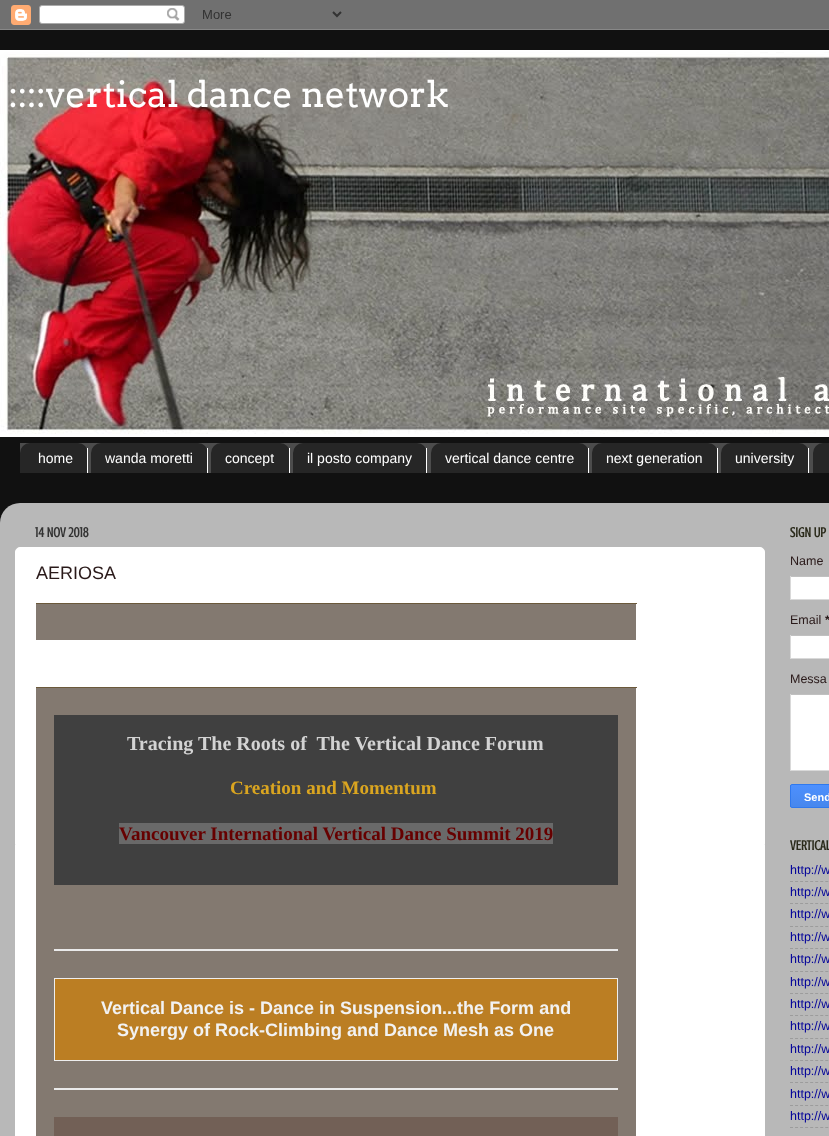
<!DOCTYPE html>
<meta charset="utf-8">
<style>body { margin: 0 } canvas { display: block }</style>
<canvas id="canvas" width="829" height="1136"></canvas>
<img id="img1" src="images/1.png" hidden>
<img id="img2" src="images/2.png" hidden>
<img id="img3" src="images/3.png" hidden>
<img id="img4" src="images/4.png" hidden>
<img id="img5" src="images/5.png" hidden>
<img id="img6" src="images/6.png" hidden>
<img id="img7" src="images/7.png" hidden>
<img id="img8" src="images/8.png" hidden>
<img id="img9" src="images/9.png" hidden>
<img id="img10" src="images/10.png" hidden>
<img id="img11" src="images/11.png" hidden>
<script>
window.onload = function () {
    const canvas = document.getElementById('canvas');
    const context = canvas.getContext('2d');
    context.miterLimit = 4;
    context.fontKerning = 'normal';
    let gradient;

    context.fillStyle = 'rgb(17, 17, 17)';
    context.fillRect(0, 0, 829, 1136);
    context.drawImage(document.getElementById('img1'), 0, 0, 829, 30);
    context.fillStyle = 'rgb(255, 255, 255)';
    context.fillRect(0, 50, 829, 387);
    context.drawImage(document.getElementById('img2'), 0, 52, 829, 382);
    context.fillStyle = 'rgb(76, 76, 76)';
    context.fillRect(20, 443, 809, 30);
    context.drawImage(document.getElementById('img3'), 20, 443, 67, 30);
    context.fillStyle = 'rgb(255, 255, 255)';
    context.fillRect(87, 448, 1, 25);
    context.drawImage(document.getElementById('img4'), 91, 443, 116, 30);
    context.fillRect(207, 448, 1, 25);
    context.drawImage(document.getElementById('img5'), 211, 443, 78, 30);
    context.fillRect(289, 448, 1, 25);
    context.drawImage(document.getElementById('img6'), 293, 443, 133, 30);
    context.fillRect(426, 448, 1, 25);
    context.drawImage(document.getElementById('img7'), 431, 443, 157, 30);
    context.fillRect(588, 448, 1, 25);
    context.drawImage(document.getElementById('img8'), 592, 443, 125, 30);
    context.fillRect(717, 448, 1, 25);
    context.drawImage(document.getElementById('img9'), 721, 443, 87, 30);
    context.fillRect(808, 448, 1, 25);
    context.drawImage(document.getElementById('img10'), 813, 443, 16, 30);
    context.drawImage(document.getElementById('img11'), 0, 503, 829, 633);
    context.beginPath();
    context.roundRect(15.5, 547.5, 749, 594, 4.5);
    context.fill();
    context.strokeStyle = 'rgb(255, 255, 255)';
    context.stroke();
    context.fillStyle = 'rgb(131, 121, 112)';
    context.fillRect(36, 604, 600, 532);
    context.fillStyle = 'rgb(107, 89, 59)';
    context.fillRect(36, 603, 601, 1);
    context.fillStyle = 'rgb(255, 255, 255)';
    context.fillRect(36, 640, 600, 47);
    context.fillStyle = 'rgb(107, 89, 59)';
    context.fillRect(36, 687, 601, 1);
    context.fillStyle = 'rgb(64, 64, 64)';
    context.fillRect(54, 715, 564, 170);
    context.fillStyle = 'rgb(105, 105, 105)';
    context.fillRect(119, 823, 434, 21);
    context.fillStyle = 'rgb(234, 234, 234)';
    context.fillRect(54, 949, 564, 2);
    context.fillStyle = 'rgb(187, 126, 35)';
    context.fillRect(55, 979, 562, 81);
    context.fillStyle = 'rgb(238, 238, 238)';
    context.fillRect(54, 978, 564, 1);
    context.fillRect(617, 978, 1, 83);
    context.fillRect(54, 1060, 564, 1);
    context.fillRect(54, 978, 1, 83);
    context.fillStyle = 'rgb(234, 234, 234)';
    context.fillRect(54, 1088, 564, 2);
    context.fillStyle = 'rgb(114, 96, 86)';
    context.fillRect(54, 1117, 564, 19);
    context.fillStyle = 'rgb(255, 255, 255)';
    context.fillRect(791, 577, 38, 22);
    context.fillStyle = 'rgb(192, 192, 192)';
    context.fillRect(790, 576, 39, 1);
    context.fillStyle = 'rgb(217, 217, 217)';
    context.fillRect(790, 599, 39, 1);
    context.fillRect(790, 576, 1, 24);
    context.fillStyle = 'rgb(255, 255, 255)';
    context.fillRect(791, 636, 38, 22);
    context.fillStyle = 'rgb(192, 192, 192)';
    context.fillRect(790, 635, 39, 1);
    context.fillStyle = 'rgb(217, 217, 217)';
    context.fillRect(790, 658, 39, 1);
    context.fillRect(790, 635, 1, 24);
    context.fillStyle = 'rgb(255, 255, 255)';
    context.fillRect(791, 695, 38, 75);
    context.fillStyle = 'rgb(192, 192, 192)';
    context.fillRect(790, 694, 39, 1);
    context.fillStyle = 'rgb(217, 217, 217)';
    context.fillRect(790, 770, 39, 1);
    context.fillRect(790, 694, 1, 77);
    gradient = context.createLinearGradient(817, 785, 817, 807);
    gradient.addColorStop(0, 'rgb(77, 144, 254)');
    gradient.addColorStop(1, 'rgb(71, 135, 237)');
    context.fillStyle = gradient;
    context.fillRect(790, 785, 39, 22);
    context.beginPath();
    context.roundRect(790.5, 784.5, 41, 23, 1.5);
    context.strokeStyle = 'rgb(48, 121, 237)';
    context.stroke();
    context.beginPath();
    context.moveTo(790, 881.5);
    context.lineTo(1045, 881.5);
    context.moveTo(790, 903.5);
    context.lineTo(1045, 903.5);
    context.moveTo(790, 926.5);
    context.lineTo(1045, 926.5);
    context.strokeStyle = 'rgb(156, 156, 156)';
    context.setLineDash([3, 2.04]);
    context.stroke();
    context.beginPath();
    context.moveTo(790, 948.5);
    context.lineTo(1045, 948.5);
    context.moveTo(790, 971.5);
    context.lineTo(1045, 971.5);
    context.moveTo(790, 993.5);
    context.lineTo(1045, 993.5);
    context.stroke();
    context.beginPath();
    context.moveTo(790, 1015.5);
    context.lineTo(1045, 1015.5);
    context.moveTo(790, 1038.5);
    context.lineTo(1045, 1038.5);
    context.moveTo(790, 1060.5);
    context.lineTo(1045, 1060.5);
    context.stroke();
    context.beginPath();
    context.moveTo(790, 1082.5);
    context.lineTo(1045, 1082.5);
    context.moveTo(790, 1105.5);
    context.lineTo(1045, 1105.5);
    context.moveTo(790, 1127.5);
    context.lineTo(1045, 1127.5);
    context.stroke();
    context.font = '36px Arvo';
    context.fillStyle = 'rgb(255, 255, 255)';
    context.fillText('::::vertical dance network', 9, 107);
    context.font = '14px Liberation Sans';
    context.fillText('home', 38, 463);
    context.fillText('wanda moretti', 105, 463);
    context.fillText('concept', 225, 463);
    context.fillText('il posto company', 307, 463);
    context.fillText('vertical dance centre', 445, 463);
    context.fillText('next generation', 606, 463);
    context.fillText('university', 735, 463);
    context.font = 'bold 14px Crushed';
    context.fillStyle = 'rgb(51, 51, 51)';
    context.fillText('14 NOV 2018', 35, 537);
    context.font = '18px Liberation Sans';
    context.fillStyle = 'rgb(42, 26, 26)';
    context.fillText('AERIOSA', 36, 579);
    context.font = 'bold 20px Liberation Serif';
    context.fillStyle = 'rgb(211, 211, 211)';
    context.fillText('Tracing The Roots of  The Vertical Dance Forum', 127, 750);
    context.font = 'bold 19px Liberation Serif';
    context.fillStyle = 'rgb(218, 165, 32)';
    context.fillText('Creation and Momentum', 230, 794);
    context.fillStyle = 'rgb(102, 0, 0)';
    context.fillText('Vancouver International Vertical Dance Summit 2019', 119, 840);
    context.font = 'bold 18px Liberation Sans';
    context.fillStyle = 'rgb(242, 242, 242)';
    context.fillText('Vertical Dance is - Dance in Suspension...the Form and', 101, 1014);
    context.fillText('Synergy of Rock-Climbing and Dance Mesh as One', 117, 1036);
    context.font = 'bold 14px Crushed';
    context.fillStyle = 'rgb(42, 42, 26)';
    context.fillText('SIGN UP', 790, 537);
    context.font = '12.5px Liberation Sans';
    context.fillStyle = 'rgb(42, 26, 26)';
    context.fillText('Name', 790, 565);
    context.fillText('Email', 790, 624);
    context.font = 'bold 12.5px Liberation Sans';
    context.fillText('*', 825, 624);
    context.font = '12.5px Liberation Sans';
    context.fillText('Messa', 790, 683);
    context.font = 'bold 11px Liberation Sans';
    context.fillStyle = 'rgb(255, 255, 255)';
    context.fillText('Send', 804, 801);
    context.font = 'bold 14px Crushed';
    context.fillStyle = 'rgb(42, 42, 26)';
    context.fillText('VERTICAL', 790, 850);
    context.font = '12.5px Liberation Sans';
    context.fillStyle = 'rgb(0, 0, 153)';
    context.fillText('http://w', 790, 874);
    context.fillText('http://w', 790, 896);
    context.fillText('http://w', 790, 918);
    context.fillText('http://w', 790, 941);
    context.fillText('http://w', 790, 963);
    context.fillText('http://w', 790, 986);
    context.fillText('http://w', 790, 1008);
    context.fillText('http://w', 790, 1030);
    context.fillText('http://w', 790, 1053);
    context.fillText('http://w', 790, 1075);
    context.fillText('http://w', 790, 1098);
    context.fillText('http://w', 790, 1120);
};
</script>
